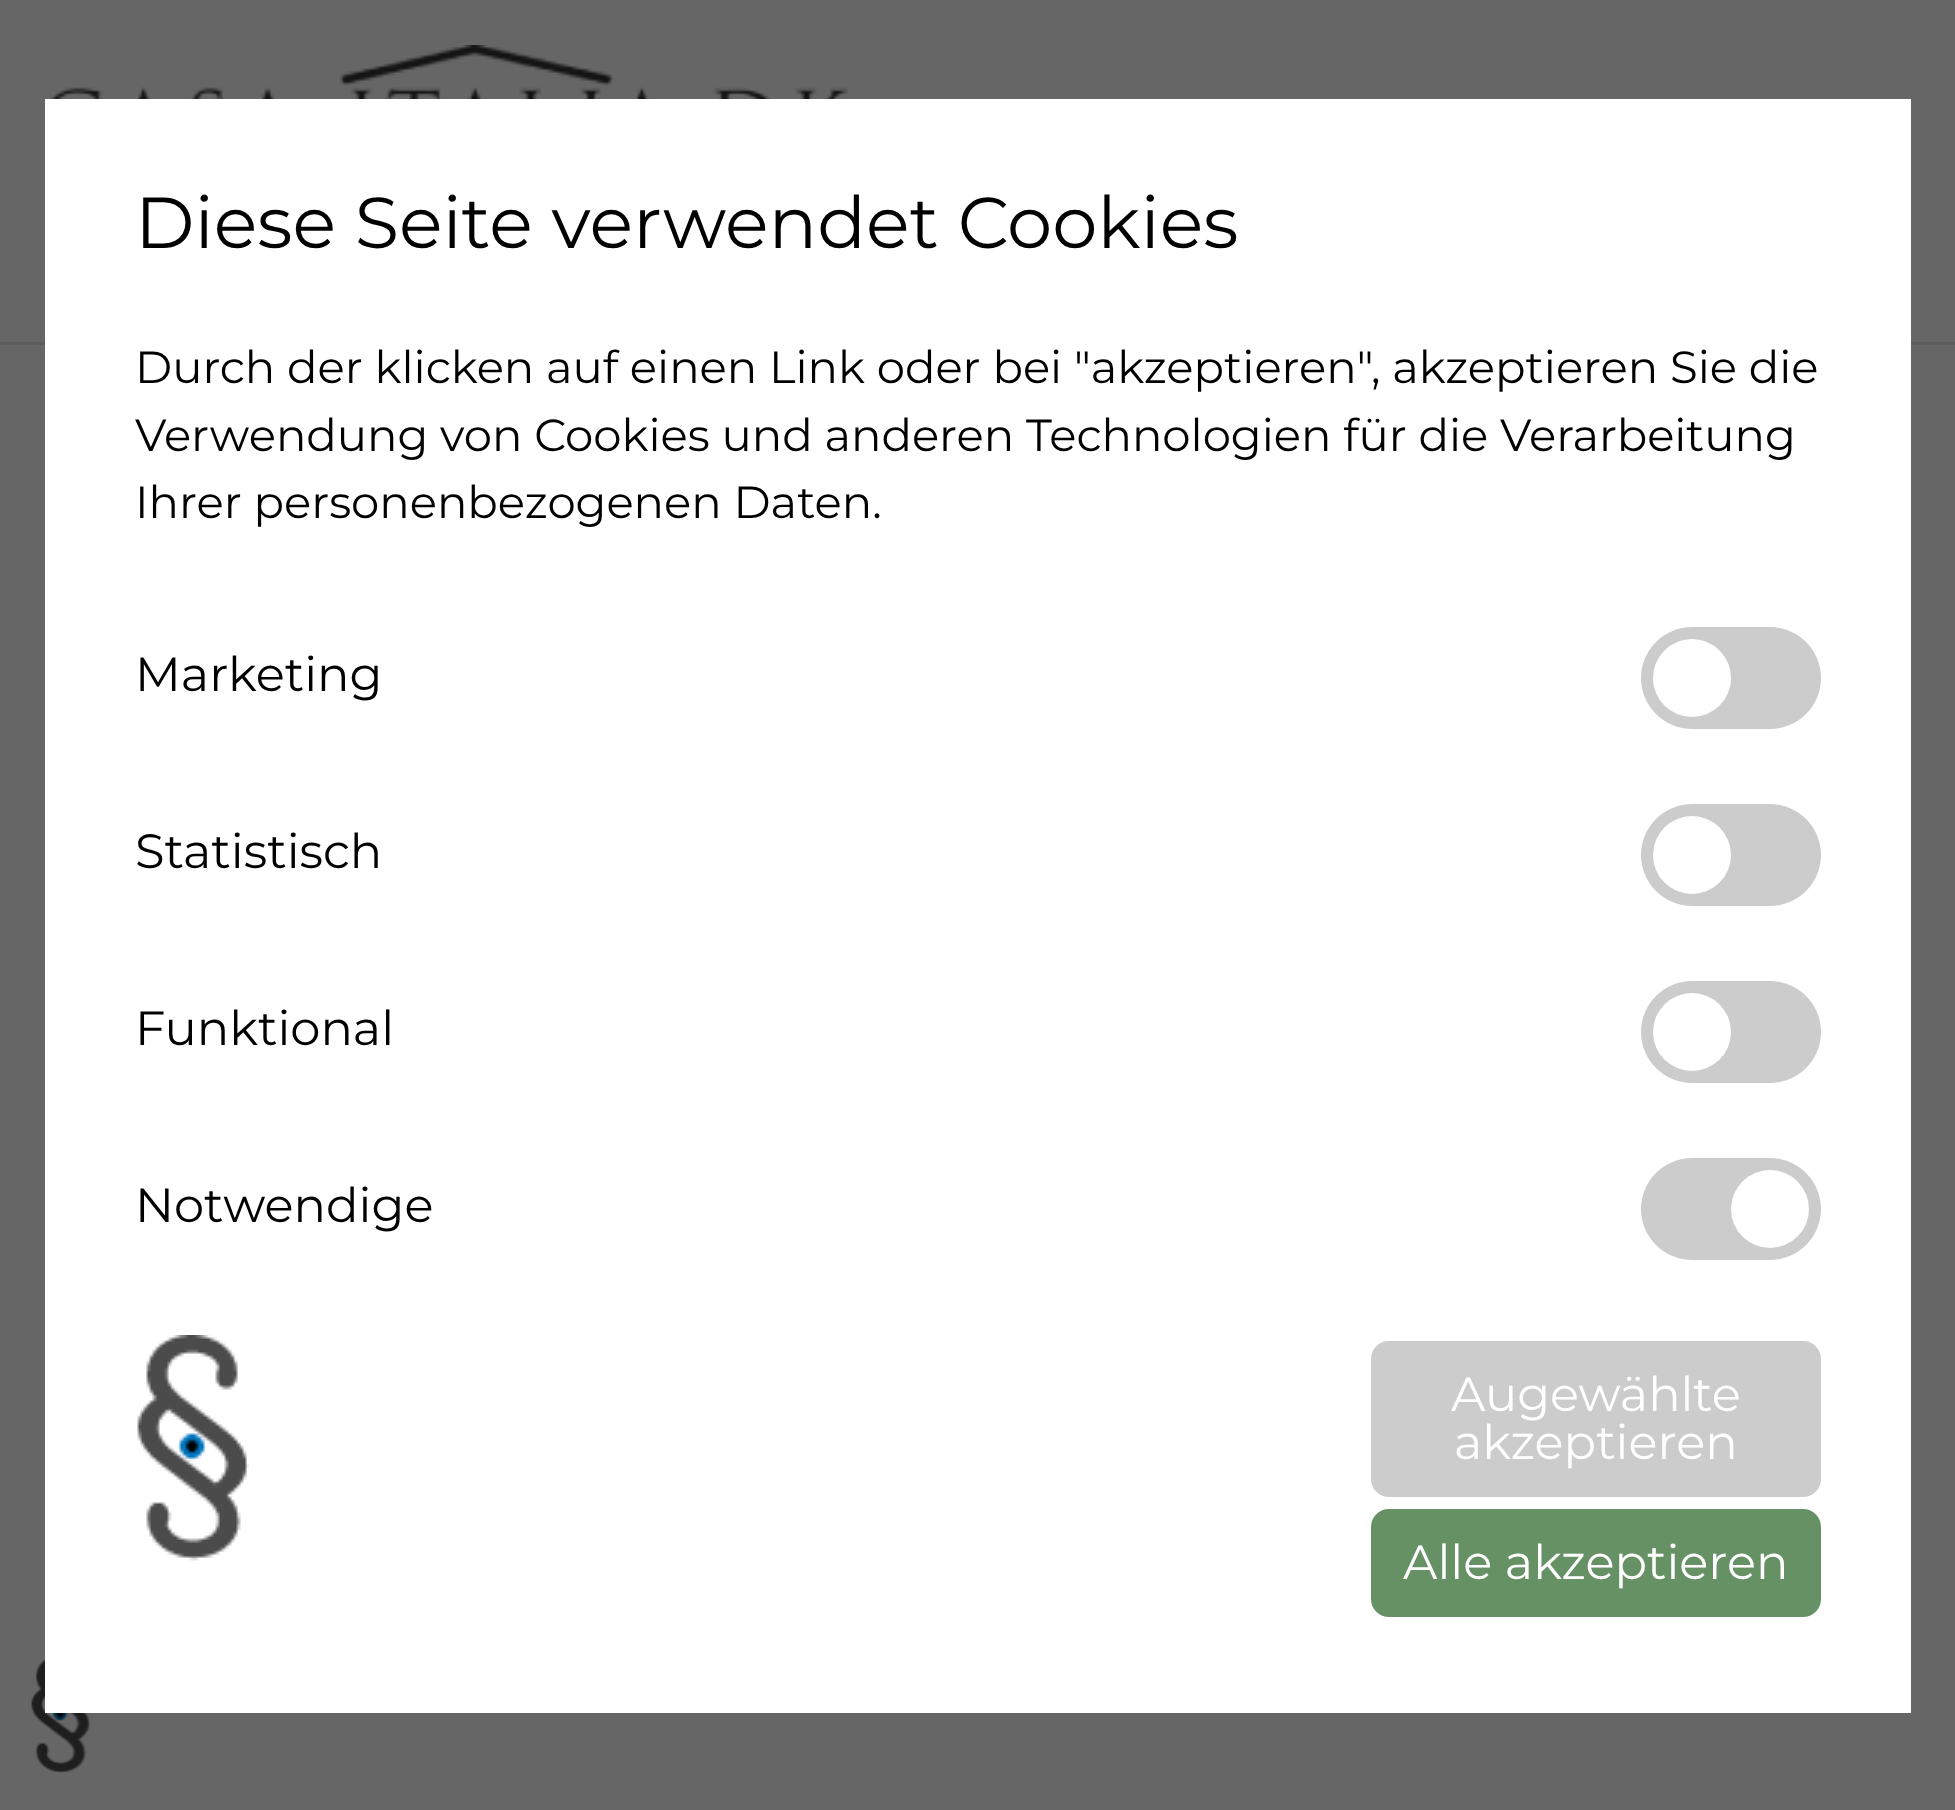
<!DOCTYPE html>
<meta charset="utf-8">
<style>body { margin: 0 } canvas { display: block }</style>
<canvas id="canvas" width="1955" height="1810"></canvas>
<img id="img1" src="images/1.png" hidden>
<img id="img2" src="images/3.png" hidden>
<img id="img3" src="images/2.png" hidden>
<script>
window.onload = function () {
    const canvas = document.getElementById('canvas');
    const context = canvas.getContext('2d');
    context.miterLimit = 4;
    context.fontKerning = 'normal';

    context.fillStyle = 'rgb(102, 102, 102)';
    context.fillRect(0, 0, 1955, 1810);
    context.fillStyle = 'rgb(92, 92, 92)';
    context.fillRect(0, 342, 1955, 3);
    context.drawImage(document.getElementById('img1'), 49, 45, 799, 54);
    context.drawImage(document.getElementById('img2'), 31, 1659, 59, 114);
    context.fillStyle = 'rgb(255, 255, 255)';
    context.fillRect(45, 99, 1866, 1614);
    context.fillStyle = 'rgb(204, 204, 204)';
    context.beginPath();
    context.roundRect(1641, 627, 180, 102, 51);
    context.fill();
    context.fillStyle = 'rgb(255, 255, 255)';
    context.beginPath();
    context.arc(1692, 678, 39, 0, 2 * Math.PI);
    context.fill();
    context.fillStyle = 'rgb(204, 204, 204)';
    context.beginPath();
    context.roundRect(1641, 804, 180, 102, 51);
    context.fill();
    context.fillStyle = 'rgb(255, 255, 255)';
    context.beginPath();
    context.arc(1692, 855, 39, 0, 2 * Math.PI);
    context.fill();
    context.fillStyle = 'rgb(204, 204, 204)';
    context.beginPath();
    context.roundRect(1641, 981, 180, 102, 51);
    context.fill();
    context.fillStyle = 'rgb(255, 255, 255)';
    context.beginPath();
    context.arc(1692, 1032, 39, 0, 2 * Math.PI);
    context.fill();
    context.fillStyle = 'rgb(204, 204, 204)';
    context.beginPath();
    context.roundRect(1641, 1158, 180, 102, 51);
    context.fill();
    context.fillStyle = 'rgb(255, 255, 255)';
    context.beginPath();
    context.arc(1770, 1209, 39, 0, 2 * Math.PI);
    context.fill();
    context.drawImage(document.getElementById('img3'), 137, 1335, 112, 226);
    context.fillStyle = 'rgb(204, 204, 204)';
    context.beginPath();
    context.roundRect(1371, 1341, 450, 156, 18);
    context.fill();
    context.fillStyle = 'rgb(101, 145, 101)';
    context.beginPath();
    context.roundRect(1371, 1509, 450, 108, 18);
    context.fill();
    context.font = '72px Montserrat';
    context.fillStyle = 'rgb(0, 0, 0)';
    context.fillText('Diese Seite verwendet Cookies', 135, 248);
    context.font = '45px Montserrat';
    context.fillText('Durch der klicken auf einen Link oder bei "akzeptieren", akzeptieren Sie die', 135, 383);
    context.fillText('Verwendung von Cookies und anderen Technologien für die Verarbeitung', 135, 451);
    context.fillText('Ihrer personenbezogenen Daten.', 135, 518);
    context.font = '48px Montserrat';
    context.fillText('Marketing', 135, 691);
    context.fillText('Statistisch', 135, 868);
    context.fillText('Funktional', 135, 1045);
    context.fillText('Notwendige', 135, 1222);
    context.fillStyle = 'rgb(255, 255, 255)';
    context.fillText('Augewählte', 1451, 1411);
    context.fillText('akzeptieren', 1454, 1459);
    context.fillText('Alle akzeptieren', 1403, 1579);
};
</script>
